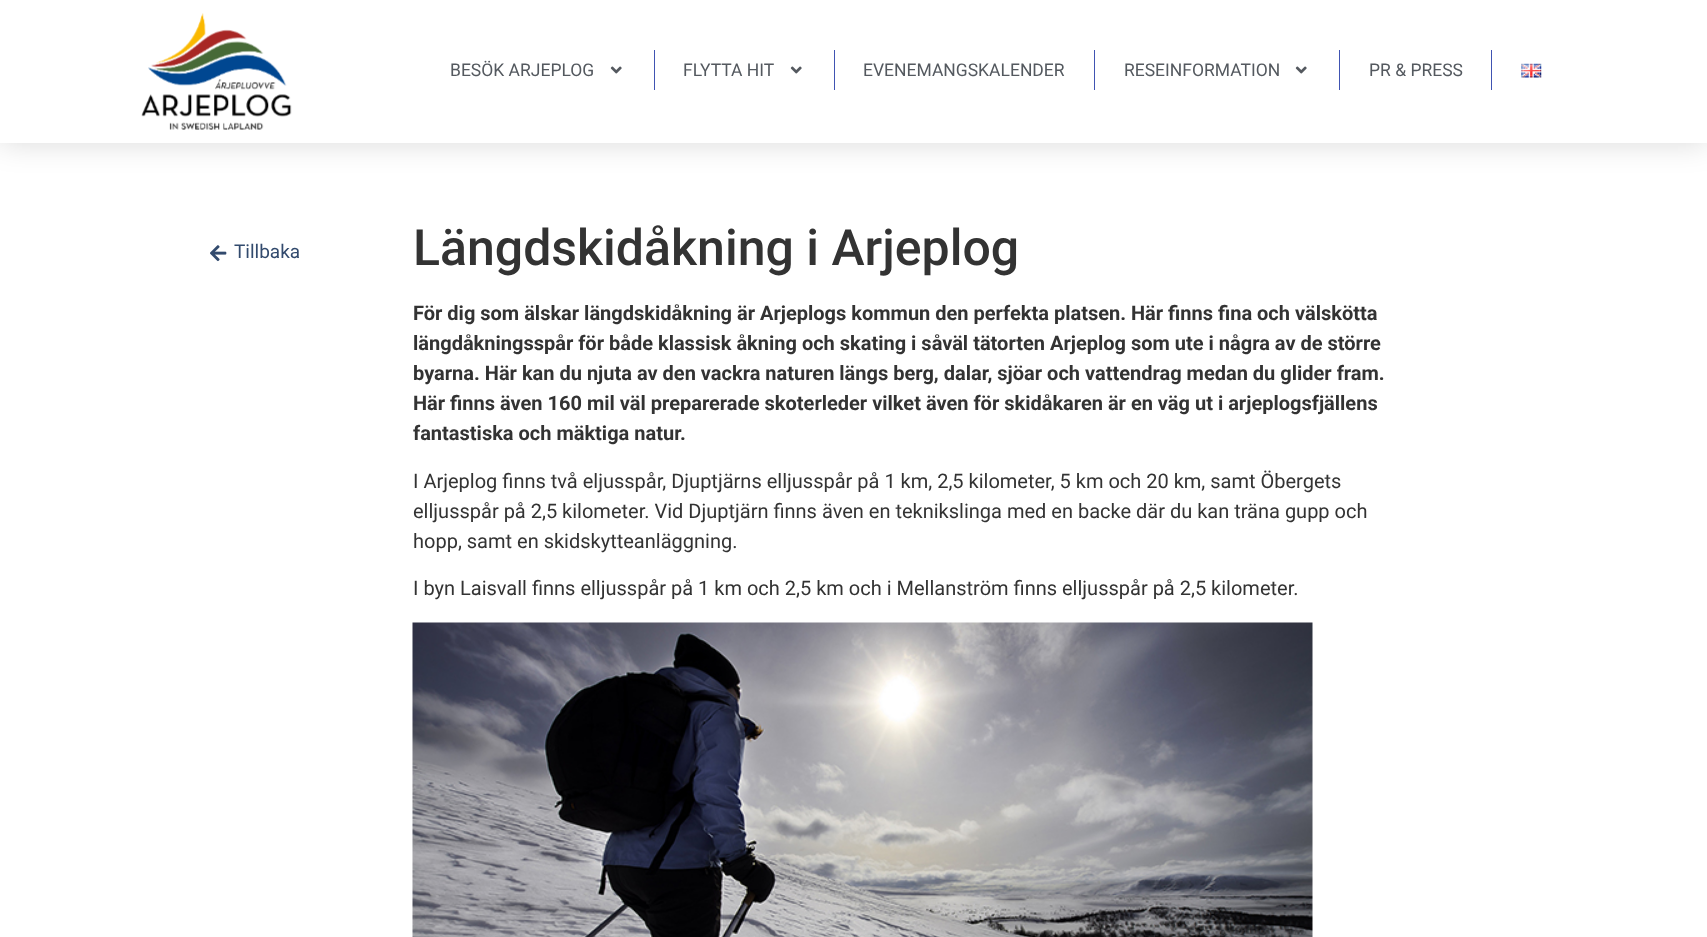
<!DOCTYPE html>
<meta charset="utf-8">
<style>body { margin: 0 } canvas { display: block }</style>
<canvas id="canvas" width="1707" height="937"></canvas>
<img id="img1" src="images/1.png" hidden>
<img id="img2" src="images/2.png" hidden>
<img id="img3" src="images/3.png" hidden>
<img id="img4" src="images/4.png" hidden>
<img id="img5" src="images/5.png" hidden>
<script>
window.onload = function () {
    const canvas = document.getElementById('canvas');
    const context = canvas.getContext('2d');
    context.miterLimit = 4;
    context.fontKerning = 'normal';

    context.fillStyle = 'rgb(255, 255, 255)';
    context.fillRect(0, 0, 1707, 937);
    context.fillStyle = 'rgba(0, 0, 0, 0.15)';
    context.filter = 'blur(15px)';
    context.beginPath();
    context.rect(0, 0, 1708, 143);
    context.fill();
    context.filter = 'none';
    context.fillStyle = 'rgb(255, 255, 255)';
    context.fillRect(0, 0, 1707, 143);
    context.drawImage(document.getElementById('img1'), 141, 13, 151, 117);
    context.drawImage(document.getElementById('img2'), 610, 66, 12, 8);
    context.fillStyle = 'rgb(64, 84, 178)';
    context.fillRect(654, 50, 1, 40);
    context.drawImage(document.getElementById('img2'), 790, 66, 12, 8);
    context.fillRect(834, 50, 1, 40);
    context.fillRect(1094, 50, 1, 40);
    context.drawImage(document.getElementById('img2'), 1295, 66, 12, 8);
    context.fillRect(1339, 50, 1, 40);
    context.fillRect(1491, 50, 1, 40);
    context.drawImage(document.getElementById('img3'), 1521, 63, 21, 15);
    context.drawImage(document.getElementById('img4'), 210, 245, 17, 17);
    context.drawImage(document.getElementById('img5'), 412, 622, 901, 315);
    context.font = '17.5px Roboto';
    context.fillStyle = 'rgb(84, 89, 95)';
    context.fillText('BESÖK ARJEPLOG', 450, 76);
    context.fillText('FLYTTA HIT', 683, 76);
    context.fillText('EVENEMANGSKALENDER', 863, 76);
    context.fillText('RESEINFORMATION', 1124, 76);
    context.fillText('PR & PRESS', 1369, 76);
    context.font = '19px Roboto';
    context.fillStyle = 'rgb(50, 74, 109)';
    context.fillText('Tillbaka', 234, 258);
    context.font = '500 50px Roboto';
    context.fillStyle = 'rgb(51, 51, 51)';
    context.fillText('Längdskidåkning i Arjeplog', 413, 265);
    context.font = 'bold 20px Roboto';
    context.fillText('För dig som älskar längdskidåkning är Arjeplogs kommun den perfekta platsen. Här finns fina och välskötta', 413, 320);
    context.fillText('längdåkningsspår för både klassisk åkning och skating i såväl tätorten Arjeplog som ute i några av de större', 413, 350);
    context.fillText('byarna. Här kan du njuta av den vackra naturen längs berg, dalar, sjöar och vattendrag medan du glider fram.', 413, 380);
    context.fillText('Här finns även 160 mil väl preparerade skoterleder vilket även för skidåkaren är en väg ut i arjeplogsfjällens', 413, 410);
    context.fillText('fantastiska och mäktiga natur.', 413, 440);
    context.font = '20px Roboto';
    context.fillText('I Arjeplog finns två eljusspår, Djuptjärns elljusspår på 1 km, 2,5 kilometer, 5 km och 20 km, samt Öbergets', 413, 488);
    context.fillText('elljusspår på 2,5 kilometer. Vid Djuptjärn finns även en teknikslinga med en backe där du kan träna gupp och', 413, 518);
    context.fillText('hopp, samt en skidskytteanläggning.', 413, 548);
    context.fillText('I byn Laisvall finns elljusspår på 1 km och 2,5 km och i Mellanström finns elljusspår på 2,5 kilometer.', 413, 595);
};
</script>
